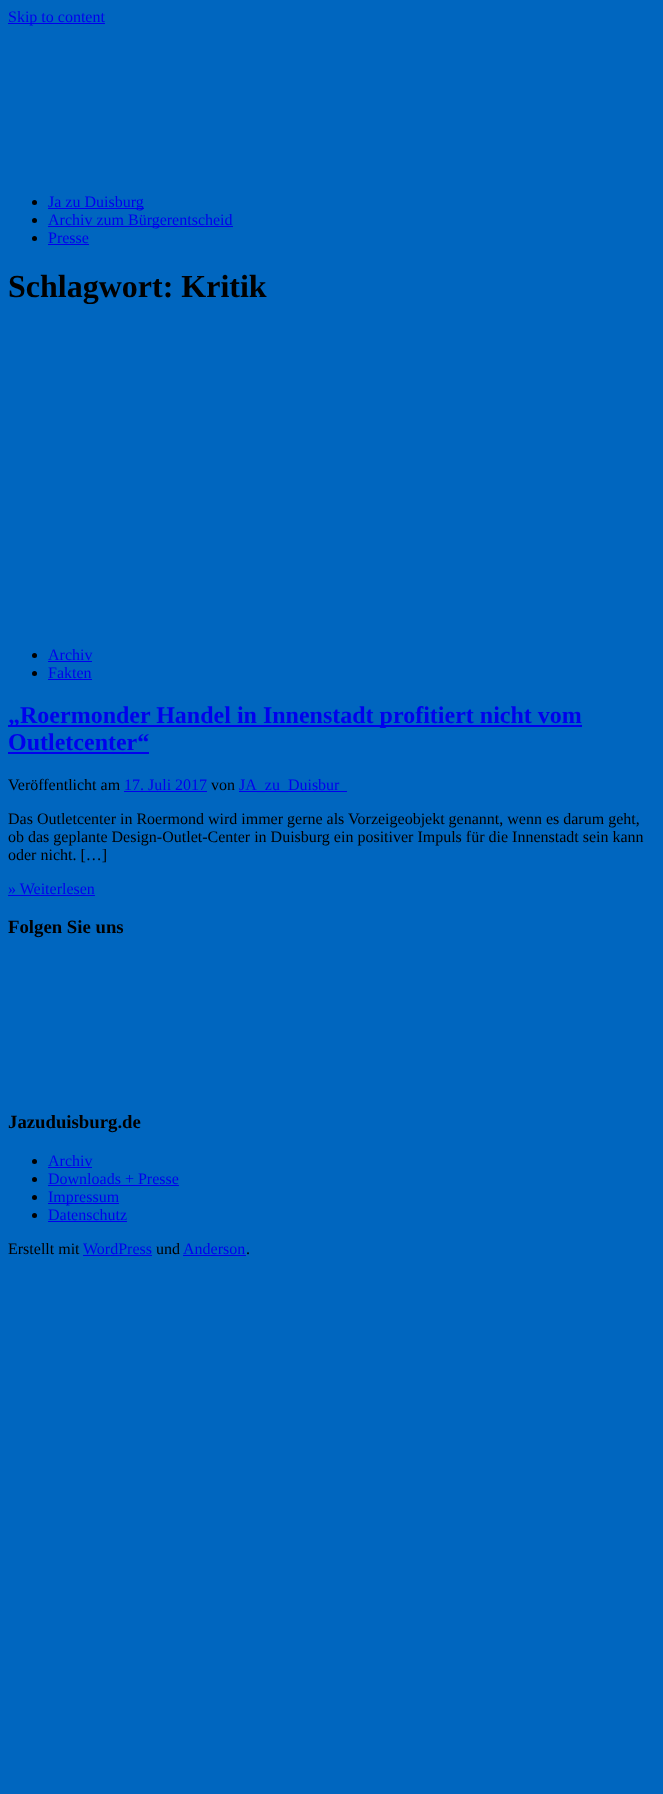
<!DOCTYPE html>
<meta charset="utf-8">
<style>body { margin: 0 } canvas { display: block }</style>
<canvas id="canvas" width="663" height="1794"></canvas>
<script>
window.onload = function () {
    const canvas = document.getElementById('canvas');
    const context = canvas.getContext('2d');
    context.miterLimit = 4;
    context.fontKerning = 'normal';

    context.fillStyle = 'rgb(0, 102, 191)';
    context.fillRect(0, 0, 663, 1794);
    context.fillStyle = 'rgb(0, 0, 238)';
    context.fillRect(8, 23, 97, 1);
    context.fillStyle = 'rgb(0, 0, 0)';
    context.beginPath();
    context.arc(34.5, 202.5, 2.5, 0, 2 * Math.PI);
    context.fill();
    context.fillStyle = 'rgb(0, 0, 238)';
    context.fillRect(48, 208, 96, 1);
    context.fillStyle = 'rgb(0, 0, 0)';
    context.beginPath();
    context.arc(34.5, 220.5, 2.5, 0, 2 * Math.PI);
    context.fill();
    context.fillStyle = 'rgb(0, 0, 238)';
    context.fillRect(48, 226, 185, 1);
    context.fillStyle = 'rgb(0, 0, 0)';
    context.beginPath();
    context.arc(34.5, 238.5, 2.5, 0, 2 * Math.PI);
    context.fill();
    context.fillStyle = 'rgb(0, 0, 238)';
    context.fillRect(48, 244, 41, 1);
    context.fillStyle = 'rgb(0, 0, 0)';
    context.beginPath();
    context.arc(34.5, 655.5, 2.5, 0, 2 * Math.PI);
    context.fill();
    context.fillStyle = 'rgb(0, 0, 238)';
    context.fillRect(48, 661, 44, 1);
    context.fillStyle = 'rgb(0, 0, 0)';
    context.beginPath();
    context.arc(34.5, 673.5, 2.5, 0, 2 * Math.PI);
    context.fill();
    context.fillStyle = 'rgb(0, 0, 238)';
    context.fillRect(48, 679, 44, 1);
    context.fillRect(8, 725, 574, 2);
    context.fillRect(8, 752, 141, 2);
    context.fillRect(124, 791, 83, 1);
    context.fillRect(239, 791, 108, 1);
    context.fillRect(8, 895, 87, 1);
    context.fillStyle = 'rgb(0, 0, 0)';
    context.beginPath();
    context.arc(34.5, 1161.5, 2.5, 0, 2 * Math.PI);
    context.fill();
    context.fillStyle = 'rgb(0, 0, 238)';
    context.fillRect(48, 1167, 44, 1);
    context.fillStyle = 'rgb(0, 0, 0)';
    context.beginPath();
    context.arc(34.5, 1179.5, 2.5, 0, 2 * Math.PI);
    context.fill();
    context.fillStyle = 'rgb(0, 0, 238)';
    context.fillRect(48, 1185, 131, 1);
    context.fillStyle = 'rgb(0, 0, 0)';
    context.beginPath();
    context.arc(34.5, 1197.5, 2.5, 0, 2 * Math.PI);
    context.fill();
    context.fillStyle = 'rgb(0, 0, 238)';
    context.fillRect(48, 1203, 71, 1);
    context.fillStyle = 'rgb(0, 0, 0)';
    context.beginPath();
    context.arc(34.5, 1215.5, 2.5, 0, 2 * Math.PI);
    context.fill();
    context.fillStyle = 'rgb(0, 0, 238)';
    context.fillRect(48, 1221, 79, 1);
    context.fillRect(83, 1255, 69, 1);
    context.fillRect(183, 1255, 63, 1);
    context.font = '16px Liberation Serif';
    context.fillText('Skip to content', 8, 22);
    context.fillText('Ja zu Duisburg', 48, 207);
    context.fillText('Archiv zum Bürgerentscheid', 48, 225);
    context.fillText('Presse', 48, 243);
    context.font = 'bold 32px Liberation Serif';
    context.fillStyle = 'rgb(0, 0, 0)';
    context.fillText('Schlagwort: Kritik', 8, 297);
    context.font = '16px Liberation Serif';
    context.fillStyle = 'rgb(0, 0, 238)';
    context.fillText('Archiv', 48, 660);
    context.fillText('Fakten', 48, 678);
    context.font = 'bold 24px Liberation Serif';
    context.fillText('„Roermonder Handel in Innenstadt profitiert nicht vom', 8, 723);
    context.fillText('Outletcenter“', 8, 750);
    context.font = '16px Liberation Serif';
    context.fillStyle = 'rgb(0, 0, 0)';
    context.fillText('Veröffentlicht am', 8, 790);
    context.fillStyle = 'rgb(0, 0, 238)';
    context.fillText('17. Juli 2017', 124, 790);
    context.fillStyle = 'rgb(0, 0, 0)';
    context.fillText('von', 211, 790);
    context.fillStyle = 'rgb(0, 0, 238)';
    context.fillText('JA_zu_Duisbur', 239, 790);
    context.fillStyle = 'rgb(0, 0, 0)';
    context.fillText('Das Outletcenter in Roermond wird immer gerne als Vorzeigeobjekt genannt, wenn es darum geht,', 8, 824);
    context.fillText('ob das geplante Design-Outlet-Center in Duisburg ein positiver Impuls für die Innenstadt sein kann', 8, 842);
    context.fillText('oder nicht. […]', 8, 860);
    context.fillStyle = 'rgb(0, 0, 238)';
    context.fillText('» Weiterlesen', 8, 894);
    context.font = 'bold 18.75px Liberation Serif';
    context.fillStyle = 'rgb(0, 0, 0)';
    context.fillText('Folgen Sie uns', 8, 933);
    context.fillText('Jazuduisburg.de', 8, 1128);
    context.font = '16px Liberation Serif';
    context.fillStyle = 'rgb(0, 0, 238)';
    context.fillText('Archiv', 48, 1166);
    context.fillText('Downloads + Presse', 48, 1184);
    context.fillText('Impressum', 48, 1202);
    context.fillText('Datenschutz', 48, 1220);
    context.fillStyle = 'rgb(0, 0, 0)';
    context.fillText('Erstellt mit', 8, 1254);
    context.fillStyle = 'rgb(0, 0, 238)';
    context.fillText('WordPress', 83, 1254);
    context.fillStyle = 'rgb(0, 0, 0)';
    context.fillText('und', 156, 1254);
    context.fillStyle = 'rgb(0, 0, 238)';
    context.fillText('Anderson', 183, 1254);
    context.fillStyle = 'rgb(0, 0, 0)';
    context.fillText('.', 246, 1254);
};
</script>
